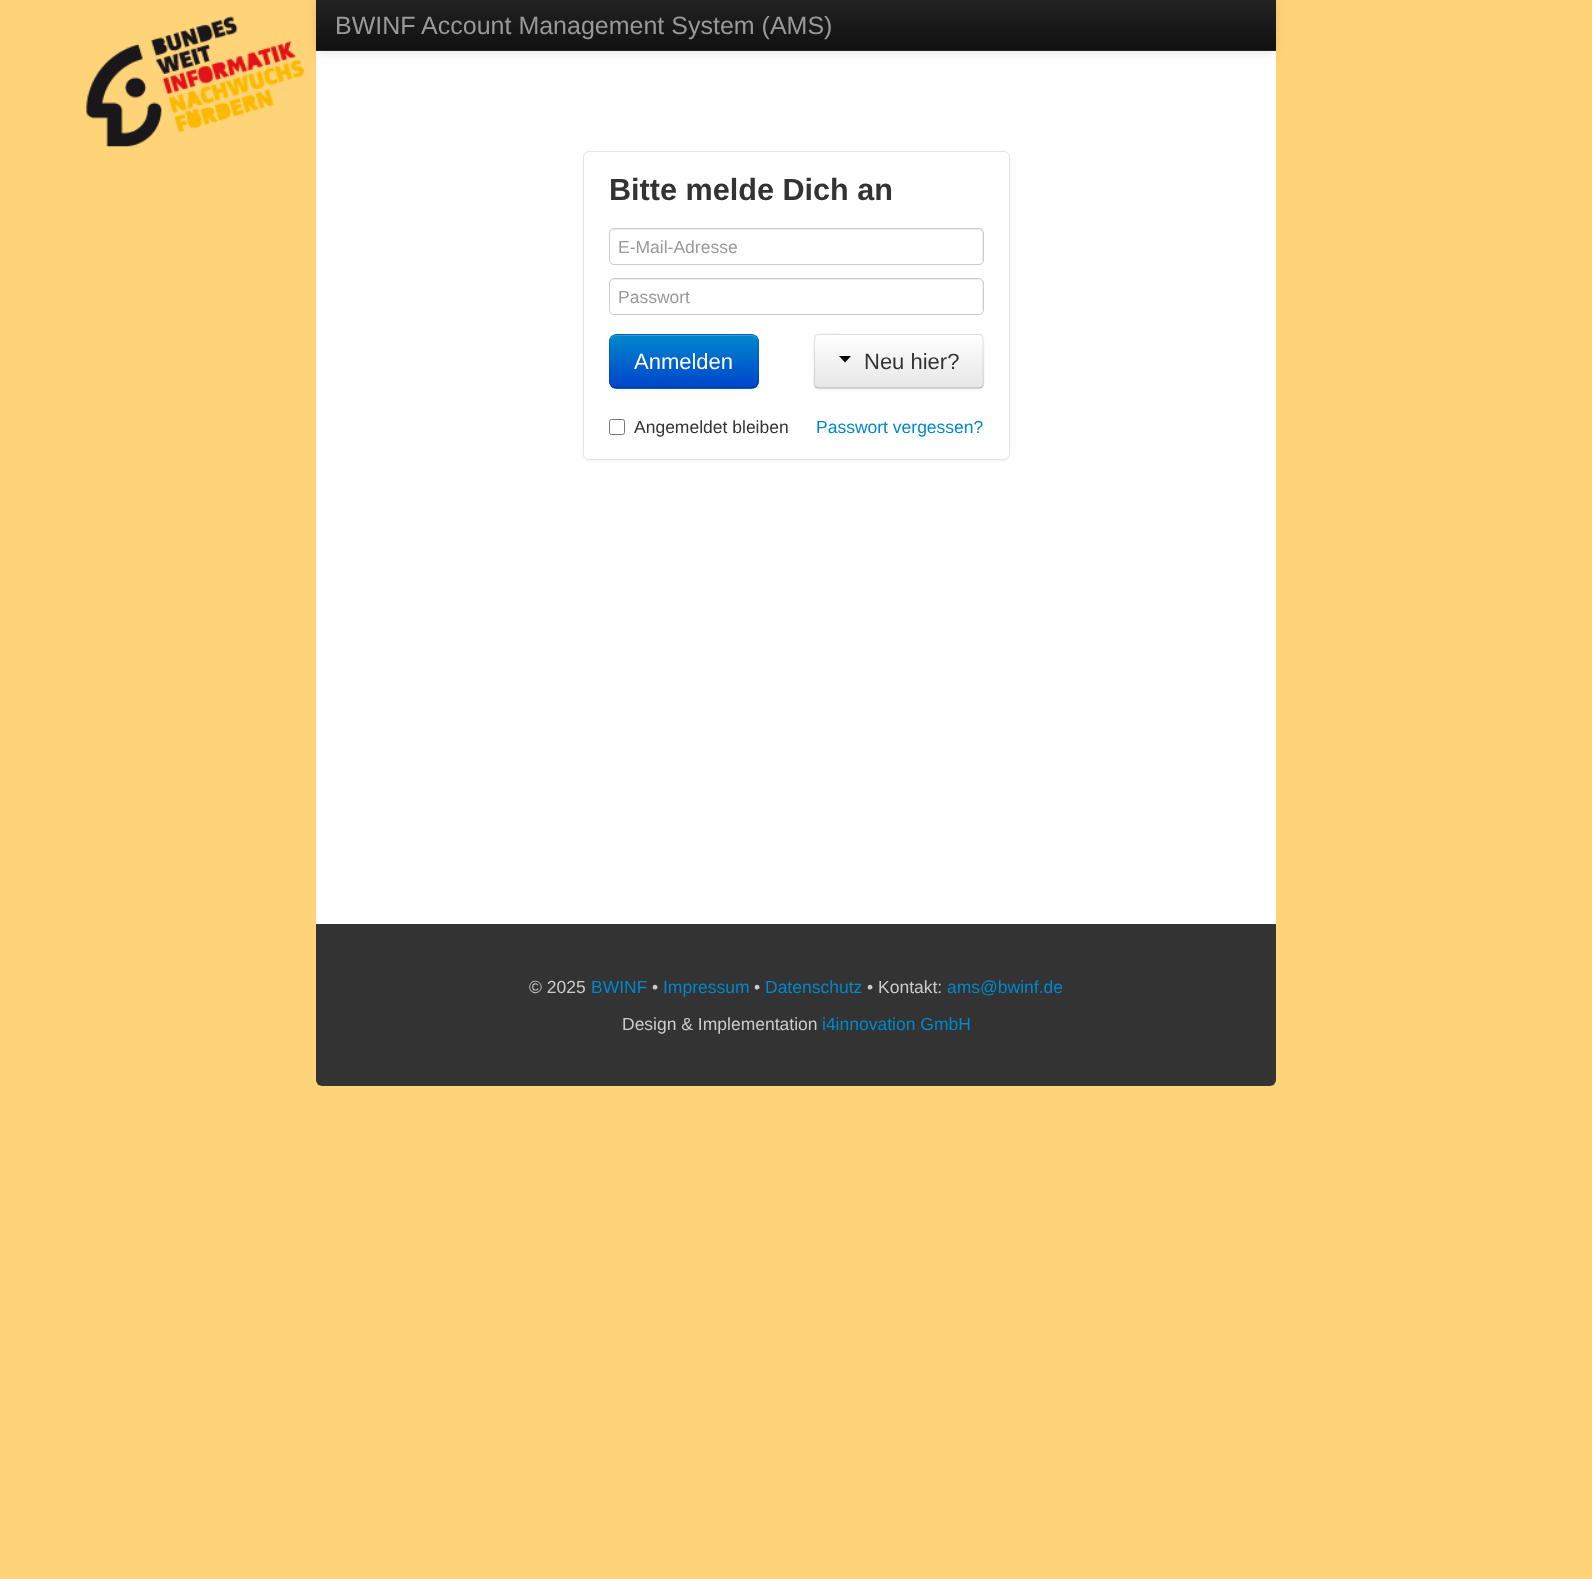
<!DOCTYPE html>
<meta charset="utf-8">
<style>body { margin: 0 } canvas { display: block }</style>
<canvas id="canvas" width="1592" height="1579"></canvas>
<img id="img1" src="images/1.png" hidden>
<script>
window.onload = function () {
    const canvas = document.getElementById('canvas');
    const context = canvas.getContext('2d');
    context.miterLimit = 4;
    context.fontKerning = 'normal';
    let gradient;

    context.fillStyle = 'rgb(255, 212, 120)';
    context.fillRect(0, 0, 1592, 1579);
    context.drawImage(document.getElementById('img1'), 86, 16, 218, 131);
    context.fillStyle = 'rgb(255, 255, 255)';
    context.beginPath();
    context.roundRect(316, 0, 960, 1086, [0, 0, 6, 6]);
    context.fill();
    context.fillStyle = 'rgba(0, 0, 0, 0.1)';
    context.filter = 'blur(6px)';
    context.beginPath();
    context.rect(316, 1, 960, 52);
    context.fill();
    context.filter = 'none';
    gradient = context.createLinearGradient(796, 0, 796, 50);
    gradient.addColorStop(0, 'rgb(34, 34, 34)');
    gradient.addColorStop(1, 'rgb(17, 17, 17)');
    context.fillStyle = gradient;
    context.fillRect(316, 0, 960, 50);
    context.fillStyle = 'rgb(37, 37, 37)';
    context.fillRect(316, 50, 960, 1);
    context.fillStyle = 'rgba(0, 0, 0, 0.05)';
    context.filter = 'blur(1px)';
    context.beginPath();
    context.roundRect(583, 153, 427, 308, 6);
    context.fill();
    context.filter = 'none';
    context.fillStyle = 'rgb(255, 255, 255)';
    context.beginPath();
    context.roundRect(583.5, 151.5, 426, 308, 5.5);
    context.fill();
    context.strokeStyle = 'rgb(229, 229, 229)';
    context.stroke();
    context.fillStyle = 'rgb(236, 236, 236)';
    context.beginPath();
    context.moveTo(614, 230);
    context.lineTo(979, 230);
    context.bezierCurveTo(984, 230, 982, 241, 982, 243);
    context.lineTo(982, 263);
    context.bezierCurveTo(982, 262, 983, 261, 983, 260);
    context.lineTo(983, 233);
    context.bezierCurveTo(983, 231, 981, 229, 979, 229);
    context.lineTo(614, 229);
    context.bezierCurveTo(612, 229, 610, 231, 610, 233);
    context.lineTo(610, 234);
    context.bezierCurveTo(610, 232, 612, 230, 614, 230);
    context.closePath();
    context.fill();
    context.beginPath();
    context.roundRect(609.5, 228.5, 374, 36, 4.5);
    context.strokeStyle = 'rgb(204, 204, 204)';
    context.stroke();
    context.beginPath();
    context.moveTo(614, 280);
    context.lineTo(979, 280);
    context.bezierCurveTo(984, 280, 982, 291, 982, 293);
    context.lineTo(982, 313);
    context.bezierCurveTo(982, 312, 983, 311, 983, 310);
    context.lineTo(983, 283);
    context.bezierCurveTo(983, 281, 981, 279, 979, 279);
    context.lineTo(614, 279);
    context.bezierCurveTo(612, 279, 610, 281, 610, 283);
    context.lineTo(610, 284);
    context.bezierCurveTo(610, 282, 612, 280, 614, 280);
    context.closePath();
    context.fill();
    context.beginPath();
    context.roundRect(609.5, 278.5, 374, 36, 4.5);
    context.stroke();
    context.fillStyle = 'rgba(0, 0, 0, 0.05)';
    context.filter = 'blur(1px)';
    context.beginPath();
    context.roundRect(609, 335, 150, 55, 8);
    context.fill();
    context.filter = 'none';
    context.fillStyle = 'rgb(0, 109, 204)';
    context.beginPath();
    context.roundRect(609, 334, 150, 55, 8);
    context.fill();
    context.save();
    context.beginPath();
    context.roundRect(609, 334, 150, 55, 8);
    context.clip();
    gradient = context.createLinearGradient(684, 335, 684, 388);
    gradient.addColorStop(0, 'rgb(0, 136, 204)');
    gradient.addColorStop(1, 'rgb(0, 68, 204)');
    context.fillStyle = gradient;
    context.fillRect(609, 335, 150, 53);
    context.restore();
    context.fillStyle = 'rgb(51, 159, 214)';
    context.beginPath();
    context.moveTo(616, 336);
    context.lineTo(751, 336);
    context.bezierCurveTo(755, 336, 758, 339, 758, 342);
    context.lineTo(758, 341);
    context.bezierCurveTo(758, 338, 755, 335, 752, 335);
    context.lineTo(616, 335);
    context.bezierCurveTo(613, 335, 610, 338, 610, 341);
    context.lineTo(610, 342);
    context.bezierCurveTo(610, 339, 613, 336, 616, 336);
    context.closePath();
    context.fill();
    context.beginPath();
    context.moveTo(756, 386);
    context.bezierCurveTo(755, 387.5, 753, 388, 751, 388);
    context.lineTo(616, 388);
    context.bezierCurveTo(614.5, 388, 612.5, 387.5, 611.5, 386);
    context.strokeStyle = 'rgba(0, 0, 0, 0.25)';
    context.lineWidth = 1.2;
    context.stroke();
    context.beginPath();
    context.moveTo(611.5, 386);
    context.bezierCurveTo(608.5, 383, 609.5, 378.5, 609.5, 374.5);
    context.lineTo(609.5, 361);
    context.bezierCurveTo(609.5, 330, 605.5, 334.5, 639, 334.5);
    context.lineTo(729, 334.5);
    context.bezierCurveTo(762, 334.5, 758, 330, 758, 361);
    context.lineTo(758, 374.5);
    context.bezierCurveTo(758, 378.5, 759, 383, 756, 386);
    context.strokeStyle = 'rgba(0, 0, 0, 0.1)';
    context.stroke();
    context.fillStyle = 'rgba(0, 0, 0, 0.05)';
    context.filter = 'blur(1px)';
    context.beginPath();
    context.roundRect(814, 335, 170, 55, 5);
    context.fill();
    context.filter = 'none';
    context.fillStyle = 'rgb(245, 245, 245)';
    context.beginPath();
    context.roundRect(814, 334, 170, 55, 5);
    context.fill();
    context.save();
    context.beginPath();
    context.roundRect(814, 334, 170, 55, 5);
    context.clip();
    gradient = context.createLinearGradient(899, 335, 899, 388);
    gradient.addColorStop(0, 'rgb(255, 255, 255)');
    gradient.addColorStop(1, 'rgb(230, 230, 230)');
    context.fillStyle = gradient;
    context.fillRect(814, 335, 170, 53);
    context.restore();
    context.fillStyle = 'rgba(255, 255, 255, 0.2)';
    context.beginPath();
    context.moveTo(819, 336);
    context.lineTo(979, 336);
    context.bezierCurveTo(981, 336, 982, 338, 982, 340);
    context.lineTo(982, 385);
    context.lineTo(982, 387);
    context.bezierCurveTo(982, 386, 983, 385, 983, 384);
    context.lineTo(983, 339);
    context.bezierCurveTo(983, 337, 981, 335, 979, 335);
    context.lineTo(819, 335);
    context.bezierCurveTo(817, 335, 815, 337, 815, 339);
    context.lineTo(815, 340);
    context.bezierCurveTo(815, 338, 817, 336, 819, 336);
    context.closePath();
    context.fill();
    context.beginPath();
    context.moveTo(982, 387);
    context.bezierCurveTo(981, 387.5, 980, 388, 979, 388);
    context.lineTo(819, 388);
    context.bezierCurveTo(817.5, 388, 816.5, 387.5, 815.5, 387);
    context.strokeStyle = 'rgb(179, 179, 179)';
    context.stroke();
    context.beginPath();
    context.moveTo(815.5, 387);
    context.bezierCurveTo(813, 384.5, 814.5, 378.5, 814.5, 376);
    context.lineTo(814.5, 361);
    context.bezierCurveTo(814.5, 327.5, 809, 334.5, 845.5, 334.5);
    context.lineTo(979, 334.5);
    context.bezierCurveTo(984.5, 334.5, 983, 343, 983, 346);
    context.lineTo(983, 376);
    context.bezierCurveTo(983, 378.5, 984.5, 384.5, 982, 387);
    context.strokeStyle = 'rgba(0, 0, 0, 0.1)';
    context.stroke();
    context.fillStyle = 'rgb(0, 0, 0)';
    context.beginPath();
    context.moveTo(839, 356);
    context.lineTo(851, 356);
    context.lineTo(845, 362.5);
    context.closePath();
    context.fill();
    context.beginPath();
    context.roundRect(609.5, 419.5, 15, 15, 2);
    context.strokeStyle = 'rgb(118, 118, 118)';
    context.lineWidth = 1;
    context.stroke();
    context.fillStyle = 'rgb(51, 51, 51)';
    context.beginPath();
    context.roundRect(316, 924, 960, 162, [0, 0, 6, 6]);
    context.fill();
    context.font = '25px Liberation Sans';
    context.fillStyle = 'rgb(153, 153, 153)';
    context.fillText('BWINF Account Management System (AMS)', 335, 34);
    context.font = 'bold 30.6px Liberation Sans';
    context.fillStyle = 'rgb(51, 51, 51)';
    context.fillText('Bitte melde Dich an', 609, 200);
    context.font = '17.5px Liberation Sans';
    context.fillStyle = 'rgb(153, 153, 153)';
    context.fillText('E-Mail-Adresse', 618, 253);
    context.fillText('Passwort', 618, 303);
    context.font = '22px Liberation Sans';
    context.fillStyle = 'rgb(255, 255, 255)';
    context.fillText('Anmelden', 634, 369);
    context.fillStyle = 'rgb(51, 51, 51)';
    context.fillText('Neu hier?', 864, 369);
    context.font = '17.5px Liberation Sans';
    context.fillText('Angemeldet bleiben', 634, 433);
    context.fillStyle = 'rgb(0, 136, 204)';
    context.fillText('Passwort vergessen?', 816, 433);
    context.fillStyle = 'rgb(204, 204, 204)';
    context.fillText('© 2025', 529, 993);
    context.fillStyle = 'rgb(0, 136, 204)';
    context.fillText('BWINF', 591, 993);
    context.fillStyle = 'rgb(204, 204, 204)';
    context.fillText('•', 652, 993);
    context.fillStyle = 'rgb(0, 136, 204)';
    context.fillText('Impressum', 663, 993);
    context.fillStyle = 'rgb(204, 204, 204)';
    context.fillText('•', 754, 993);
    context.fillStyle = 'rgb(0, 136, 204)';
    context.fillText('Datenschutz', 765, 993);
    context.fillStyle = 'rgb(204, 204, 204)';
    context.fillText('• Kontakt:', 867, 993);
    context.fillStyle = 'rgb(0, 136, 204)';
    context.fillText('ams@bwinf.de', 947, 993);
    context.fillStyle = 'rgb(204, 204, 204)';
    context.fillText('Design & Implementation', 622, 1030);
    context.fillStyle = 'rgb(0, 136, 204)';
    context.fillText('i4innovation GmbH', 822, 1030);
};
</script>
